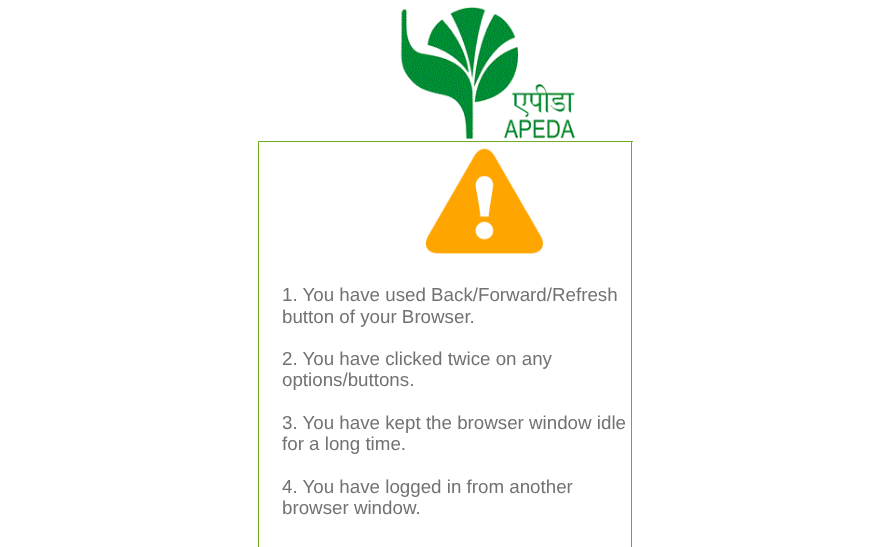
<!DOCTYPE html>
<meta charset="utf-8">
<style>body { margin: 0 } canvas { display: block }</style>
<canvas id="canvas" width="890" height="547"></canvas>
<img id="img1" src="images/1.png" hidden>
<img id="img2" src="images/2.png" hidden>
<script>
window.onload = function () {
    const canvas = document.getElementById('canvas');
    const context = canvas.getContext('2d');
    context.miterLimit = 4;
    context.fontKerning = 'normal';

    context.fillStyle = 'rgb(255, 255, 255)';
    context.fillRect(0, 0, 890, 547);
    context.drawImage(document.getElementById('img1'), 400, 7, 175, 133);
    context.fillStyle = 'rgb(114, 173, 32)';
    context.fillRect(258, 141, 375, 1);
    context.fillRect(631, 141, 1, 406);
    context.fillRect(258, 141, 1, 406);
    context.drawImage(document.getElementById('img2'), 425, 148, 119, 106);
    context.font = '18.75px Liberation Sans';
    context.fillStyle = 'rgb(114, 114, 114)';
    context.fillText('1. You have used Back/Forward/Refresh', 282, 301);
    context.fillText('button of your Browser.', 282, 323);
    context.fillText('2. You have clicked twice on any', 282, 365);
    context.fillText('options/buttons.', 282, 386);
    context.fillText('3. You have kept the browser window idle', 282, 429);
    context.fillText('for a long time.', 282, 450);
    context.fillText('4. You have logged in from another', 282, 493);
    context.fillText('browser window.', 282, 514);
};
</script>
